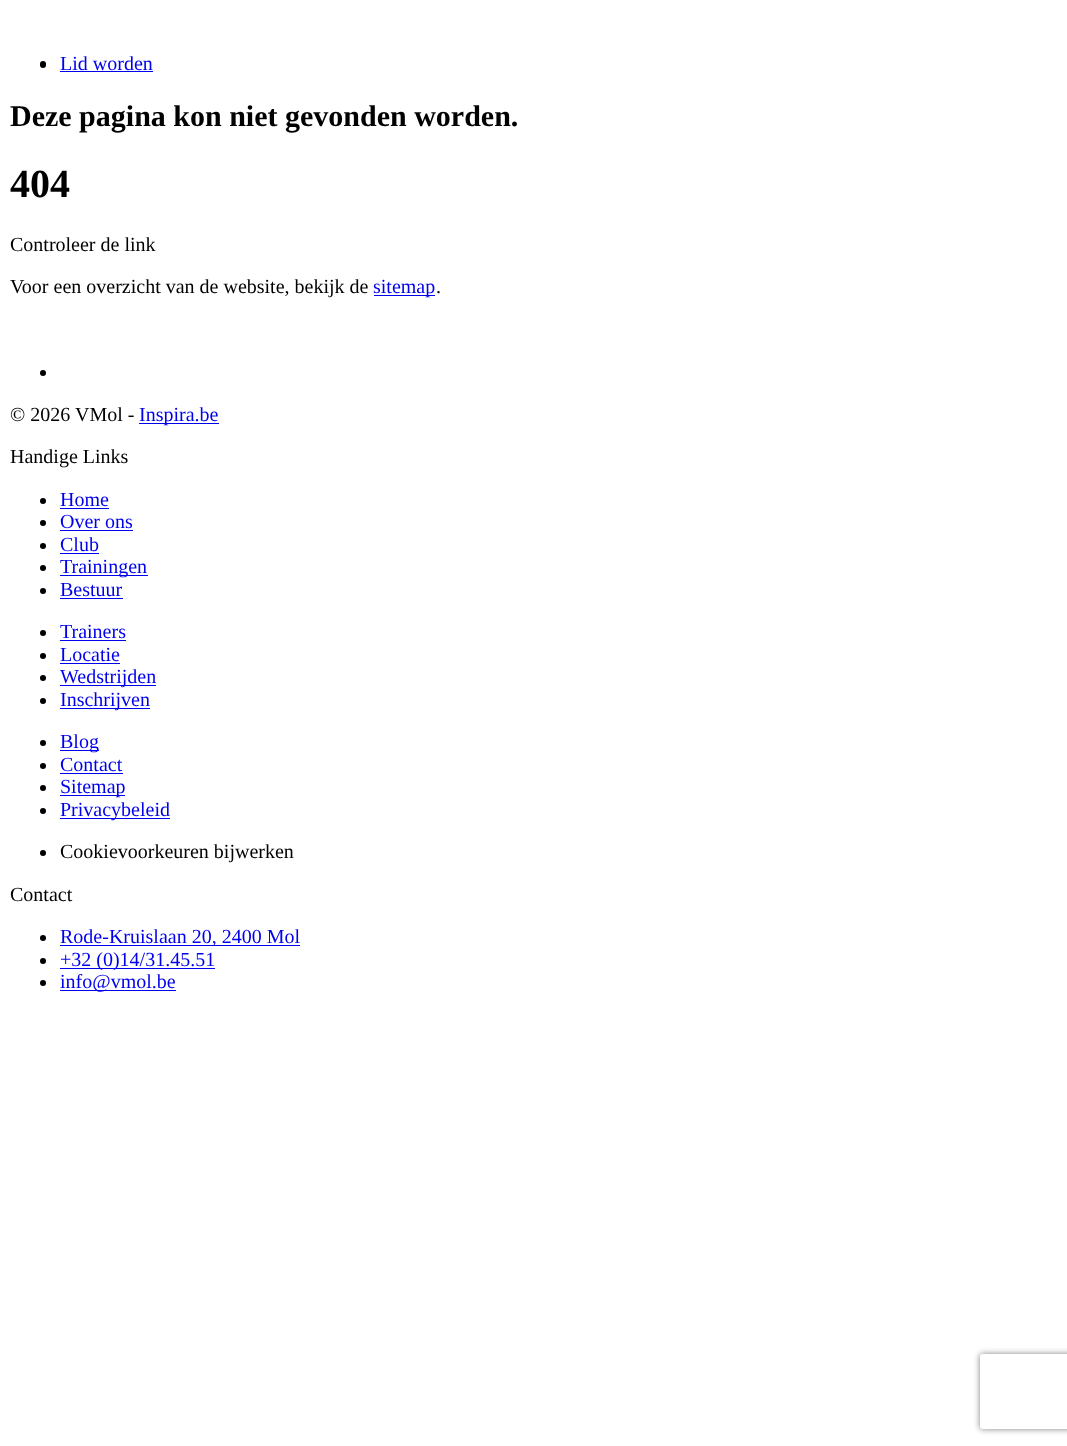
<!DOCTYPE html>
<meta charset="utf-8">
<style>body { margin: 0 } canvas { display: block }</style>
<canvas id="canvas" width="1067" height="1446"></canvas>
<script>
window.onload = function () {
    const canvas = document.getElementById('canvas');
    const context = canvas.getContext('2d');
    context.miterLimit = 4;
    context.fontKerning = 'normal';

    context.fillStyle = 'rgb(255, 255, 255)';
    context.fillRect(0, 0, 1067, 1446);
    context.fillStyle = 'rgb(0, 0, 0)';
    context.beginPath();
    context.roundRect(40, 61, 6, 7, 3);
    context.fill();
    context.fillStyle = 'rgb(0, 0, 238)';
    context.fillRect(60, 71, 93, 1);
    context.fillRect(374, 295, 61, 1);
    context.fillStyle = 'rgb(0, 0, 0)';
    context.beginPath();
    context.arc(43, 373, 3, 0, 2 * Math.PI);
    context.fill();
    context.fillStyle = 'rgb(0, 0, 238)';
    context.fillRect(139, 423, 80, 1);
    context.fillStyle = 'rgb(0, 0, 0)';
    context.beginPath();
    context.arc(43, 501, 3, 0, 2 * Math.PI);
    context.fill();
    context.fillStyle = 'rgb(0, 0, 238)';
    context.fillRect(60, 508, 49, 1);
    context.fillStyle = 'rgb(0, 0, 0)';
    context.beginPath();
    context.arc(43, 523, 3, 0, 2 * Math.PI);
    context.fill();
    context.fillStyle = 'rgb(0, 0, 238)';
    context.fillRect(60, 530, 73, 1);
    context.fillStyle = 'rgb(0, 0, 0)';
    context.beginPath();
    context.arc(43, 546, 3, 0, 2 * Math.PI);
    context.fill();
    context.fillStyle = 'rgb(0, 0, 238)';
    context.fillRect(60, 553, 39, 1);
    context.fillStyle = 'rgb(0, 0, 0)';
    context.beginPath();
    context.arc(43, 568, 3, 0, 2 * Math.PI);
    context.fill();
    context.fillStyle = 'rgb(0, 0, 238)';
    context.fillRect(60, 575, 88, 1);
    context.fillStyle = 'rgb(0, 0, 0)';
    context.beginPath();
    context.arc(43, 591, 3, 0, 2 * Math.PI);
    context.fill();
    context.fillStyle = 'rgb(0, 0, 238)';
    context.fillRect(60, 598, 63, 1);
    context.fillStyle = 'rgb(0, 0, 0)';
    context.beginPath();
    context.arc(43, 633, 3, 0, 2 * Math.PI);
    context.fill();
    context.fillStyle = 'rgb(0, 0, 238)';
    context.fillRect(60, 640, 66, 1);
    context.fillStyle = 'rgb(0, 0, 0)';
    context.beginPath();
    context.arc(43, 656, 3, 0, 2 * Math.PI);
    context.fill();
    context.fillStyle = 'rgb(0, 0, 238)';
    context.fillRect(60, 663, 60, 1);
    context.fillStyle = 'rgb(0, 0, 0)';
    context.beginPath();
    context.arc(43, 678, 3, 0, 2 * Math.PI);
    context.fill();
    context.fillStyle = 'rgb(0, 0, 238)';
    context.fillRect(60, 685, 96, 1);
    context.fillStyle = 'rgb(0, 0, 0)';
    context.beginPath();
    context.arc(43, 701, 3, 0, 2 * Math.PI);
    context.fill();
    context.fillStyle = 'rgb(0, 0, 238)';
    context.fillRect(60, 708, 90, 1);
    context.fillStyle = 'rgb(0, 0, 0)';
    context.beginPath();
    context.arc(43, 743, 3, 0, 2 * Math.PI);
    context.fill();
    context.fillStyle = 'rgb(0, 0, 238)';
    context.fillRect(60, 750, 39, 1);
    context.fillStyle = 'rgb(0, 0, 0)';
    context.beginPath();
    context.arc(43, 766, 3, 0, 2 * Math.PI);
    context.fill();
    context.fillStyle = 'rgb(0, 0, 238)';
    context.fillRect(60, 773, 63, 1);
    context.fillStyle = 'rgb(0, 0, 0)';
    context.beginPath();
    context.arc(43, 788, 3, 0, 2 * Math.PI);
    context.fill();
    context.fillStyle = 'rgb(0, 0, 238)';
    context.fillRect(60, 795, 65, 1);
    context.fillStyle = 'rgb(0, 0, 0)';
    context.beginPath();
    context.arc(43, 811, 3, 0, 2 * Math.PI);
    context.fill();
    context.fillStyle = 'rgb(0, 0, 238)';
    context.fillRect(60, 818, 110, 1);
    context.fillStyle = 'rgb(0, 0, 0)';
    context.beginPath();
    context.arc(43, 853, 3, 0, 2 * Math.PI);
    context.fill();
    context.beginPath();
    context.arc(43, 938, 3, 0, 2 * Math.PI);
    context.fill();
    context.fillStyle = 'rgb(0, 0, 238)';
    context.fillRect(60, 945, 240, 1);
    context.fillStyle = 'rgb(0, 0, 0)';
    context.beginPath();
    context.arc(43, 961, 3, 0, 2 * Math.PI);
    context.fill();
    context.fillStyle = 'rgb(0, 0, 238)';
    context.fillRect(60, 968, 155, 1);
    context.fillStyle = 'rgb(0, 0, 0)';
    context.beginPath();
    context.arc(43, 983, 3, 0, 2 * Math.PI);
    context.fill();
    context.fillStyle = 'rgb(0, 0, 238)';
    context.fillRect(60, 990, 116, 1);
    context.save();
    context.beginPath();
    context.moveTo(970, 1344);
    context.lineTo(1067, 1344);
    context.lineTo(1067, 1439);
    context.lineTo(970, 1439);
    context.closePath();
    context.moveTo(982.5, 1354);
    context.lineTo(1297.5, 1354);
    context.bezierCurveTo(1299, 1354, 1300, 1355, 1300, 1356.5);
    context.lineTo(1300, 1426.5);
    context.bezierCurveTo(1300, 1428, 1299, 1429, 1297.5, 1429);
    context.lineTo(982.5, 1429);
    context.bezierCurveTo(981, 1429, 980, 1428, 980, 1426.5);
    context.lineTo(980, 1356.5);
    context.bezierCurveTo(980, 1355, 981, 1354, 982.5, 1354);
    context.closePath();
    context.clip('evenodd');
    context.fillStyle = 'rgb(128, 128, 128)';
    context.filter = 'blur(3px)';
    context.beginPath();
    context.roundRect(980, 1354, 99, 75, 2.5);
    context.fill();
    context.filter = 'none';
    context.restore();
    context.font = '20px Liberation Serif';
    context.fillText('Lid worden', 60, 70);
    context.font = 'bold 30px Liberation Serif';
    context.fillStyle = 'rgb(0, 0, 0)';
    context.fillText('Deze pagina kon niet gevonden worden.', 10, 126);
    context.font = 'bold 40px Liberation Serif';
    context.fillText('404', 10, 197);
    context.font = '20px Liberation Serif';
    context.fillText('Controleer de link', 10, 251);
    context.fillText('Voor een overzicht van de website, bekijk de', 10, 293);
    context.fillStyle = 'rgb(0, 0, 238)';
    context.fillText('sitemap', 373, 293);
    context.fillStyle = 'rgb(0, 0, 0)';
    context.fillText('.', 436, 293);
    context.fillText('© 2026', 10, 421);
    context.fillText('VMol -', 75, 421);
    context.fillStyle = 'rgb(0, 0, 238)';
    context.fillText('Inspira.be', 139, 421);
    context.fillStyle = 'rgb(0, 0, 0)';
    context.fillText('Handige Links', 10, 463);
    context.fillStyle = 'rgb(0, 0, 238)';
    context.fillText('Home', 60, 506);
    context.fillText('Over ons', 60, 528);
    context.fillText('Club', 60, 551);
    context.fillText('Trainingen', 60, 573);
    context.fillText('Bestuur', 60, 596);
    context.fillText('Trainers', 60, 638);
    context.fillText('Locatie', 60, 661);
    context.fillText('Wedstrijden', 60, 683);
    context.fillText('Inschrijven', 60, 706);
    context.fillText('Blog', 60, 748);
    context.fillText('Contact', 60, 771);
    context.fillText('Sitemap', 60, 793);
    context.fillText('Privacybeleid', 60, 816);
    context.fillStyle = 'rgb(0, 0, 0)';
    context.fillText('Cookievoorkeuren bijwerken', 60, 858);
    context.fillText('Contact', 10, 901);
    context.fillStyle = 'rgb(0, 0, 238)';
    context.fillText('Rode-Kruislaan 20, 2400 Mol', 60, 943);
    context.fillText('+32 (0)14/31.45.51', 60, 966);
    context.fillText('info@vmol.be', 60, 988);
};
</script>
